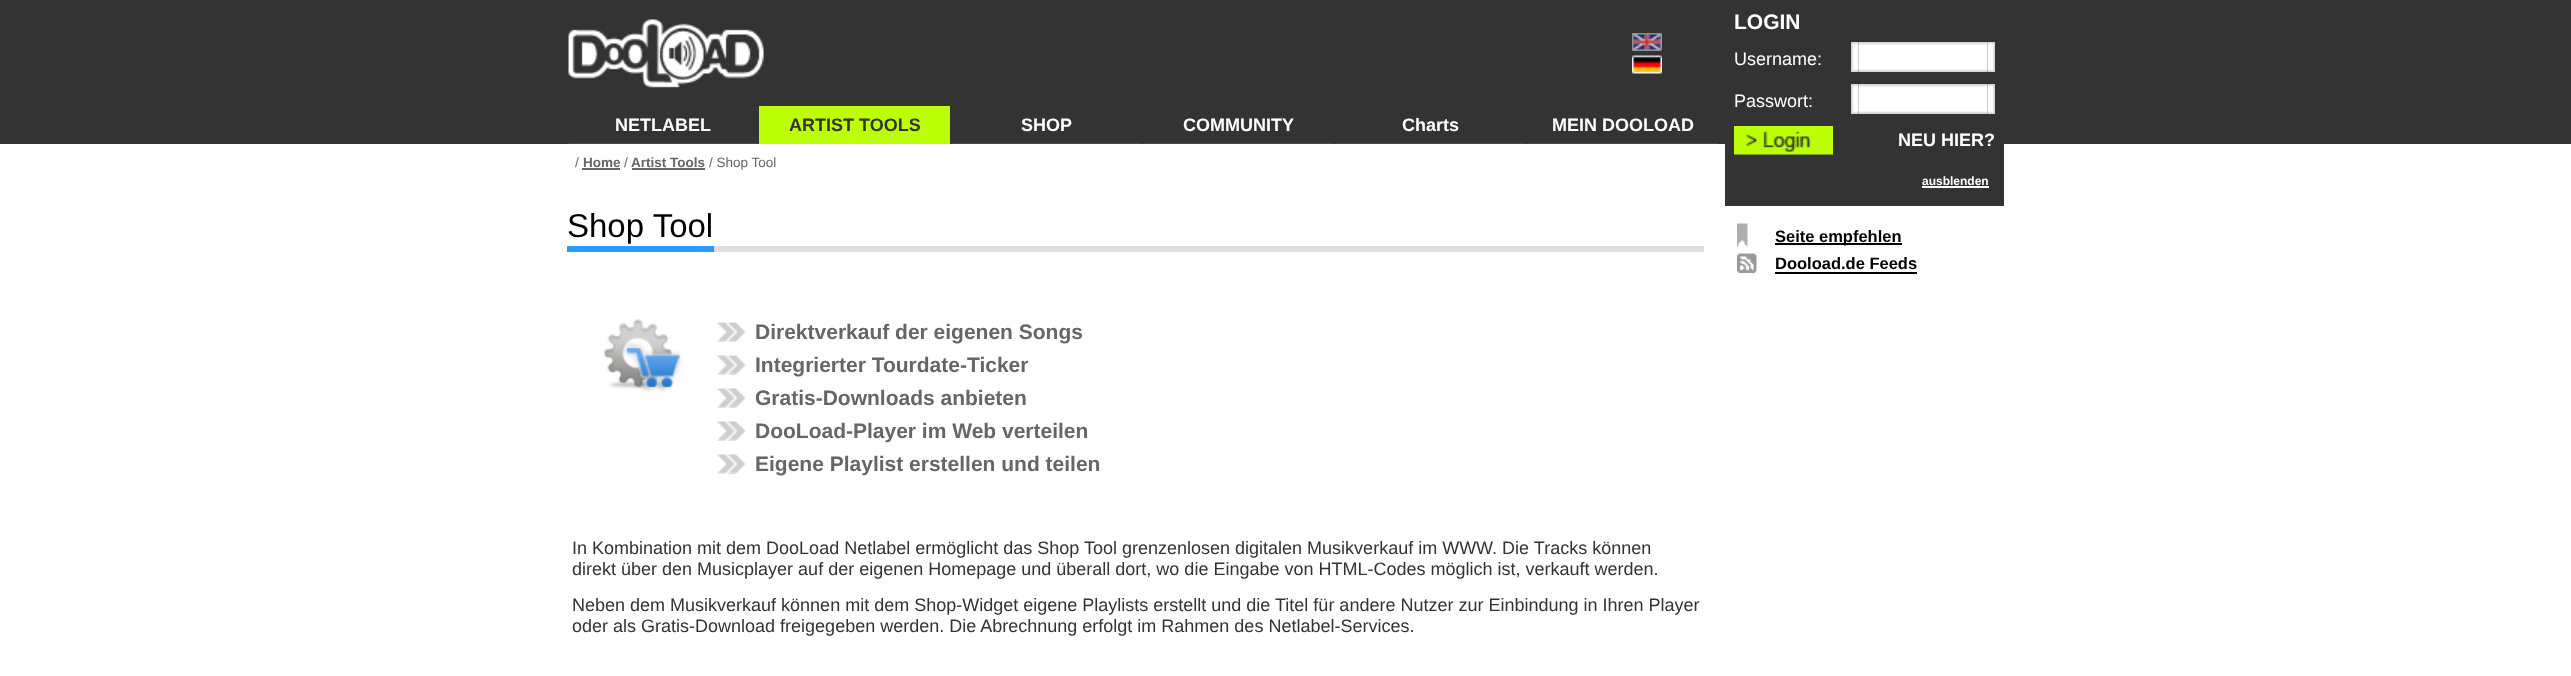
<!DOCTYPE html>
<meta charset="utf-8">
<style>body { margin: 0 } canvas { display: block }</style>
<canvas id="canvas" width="2571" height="676"></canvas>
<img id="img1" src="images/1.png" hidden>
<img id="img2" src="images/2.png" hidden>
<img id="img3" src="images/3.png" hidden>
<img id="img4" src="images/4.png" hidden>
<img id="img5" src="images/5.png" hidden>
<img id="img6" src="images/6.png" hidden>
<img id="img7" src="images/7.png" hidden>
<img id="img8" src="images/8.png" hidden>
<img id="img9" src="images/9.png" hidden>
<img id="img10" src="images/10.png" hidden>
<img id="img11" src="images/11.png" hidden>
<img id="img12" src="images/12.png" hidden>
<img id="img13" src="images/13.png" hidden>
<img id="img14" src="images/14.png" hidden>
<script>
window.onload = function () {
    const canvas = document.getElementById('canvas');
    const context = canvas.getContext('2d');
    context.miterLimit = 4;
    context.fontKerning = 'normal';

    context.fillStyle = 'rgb(255, 255, 255)';
    context.fillRect(0, 0, 2571, 676);
    context.fillStyle = 'rgb(51, 51, 51)';
    context.fillRect(0, 0, 2571, 144);
    context.drawImage(document.getElementById('img1'), 568, 19, 196, 69);
    context.drawImage(document.getElementById('img2'), 1632, 33, 30, 18);
    context.drawImage(document.getElementById('img3'), 1632, 55, 30, 19);
    context.drawImage(document.getElementById('img4'), 568, 143, 190, 1);
    context.fillStyle = 'rgb(189, 255, 7)';
    context.fillRect(759, 106, 191, 38);
    context.drawImage(document.getElementById('img5'), 951, 143, 191, 1);
    context.drawImage(document.getElementById('img5'), 1143, 143, 191, 1);
    context.drawImage(document.getElementById('img5'), 1335, 143, 191, 1);
    context.drawImage(document.getElementById('img5'), 1527, 143, 191, 1);
    context.drawImage(document.getElementById('img6'), 1725, 144, 279, 1);
    context.drawImage(document.getElementById('img7'), 1851, 42, 8, 30);
    context.drawImage(document.getElementById('img8'), 1858, 42, 130, 30);
    context.drawImage(document.getElementById('img9'), 1987, 42, 8, 30);
    context.drawImage(document.getElementById('img7'), 1851, 84, 8, 30);
    context.drawImage(document.getElementById('img8'), 1858, 84, 130, 30);
    context.drawImage(document.getElementById('img9'), 1987, 84, 8, 30);
    context.fillStyle = 'rgb(51, 51, 51)';
    context.fillRect(1725, 145, 279, 61);
    context.drawImage(document.getElementById('img10'), 1734, 126, 99, 29);
    context.fillStyle = 'rgb(255, 255, 255)';
    context.fillRect(1922, 186, 67, 2);
    context.drawImage(document.getElementById('img11'), 1737, 223, 11, 24);
    context.fillStyle = 'rgb(0, 0, 0)';
    context.fillRect(1775, 243, 127, 2);
    context.drawImage(document.getElementById('img12'), 1737, 253, 20, 20);
    context.fillRect(1775, 272, 142, 2);
    context.fillStyle = 'rgb(102, 102, 102)';
    context.fillRect(582, 168, 38, 2);
    context.fillRect(632, 168, 73, 2);
    context.fillStyle = 'rgb(39, 154, 255)';
    context.fillRect(567, 246, 147, 6);
    context.fillStyle = 'rgb(223, 223, 223)';
    context.fillRect(714, 246, 990, 6);
    context.drawImage(document.getElementById('img13'), 604, 319, 79, 73);
    context.drawImage(document.getElementById('img14'), 717, 322, 29, 20);
    context.drawImage(document.getElementById('img14'), 717, 355, 29, 20);
    context.drawImage(document.getElementById('img14'), 717, 388, 29, 20);
    context.drawImage(document.getElementById('img14'), 717, 421, 29, 20);
    context.drawImage(document.getElementById('img14'), 717, 454, 29, 20);
    context.font = 'bold 18px Liberation Sans';
    context.fillStyle = 'rgb(255, 255, 255)';
    context.fillText('NETLABEL', 615, 131);
    context.fillStyle = 'rgb(51, 51, 51)';
    context.fillText('ARTIST TOOLS', 789, 131);
    context.fillStyle = 'rgb(255, 255, 255)';
    context.fillText('SHOP', 1021, 131);
    context.fillText('COMMUNITY', 1183, 131);
    context.fillText('Charts', 1402, 131);
    context.fillText('MEIN DOOLOAD', 1552, 131);
    context.font = 'bold 21px Liberation Sans';
    context.fillText('LOGIN', 1734, 29);
    context.font = '18px Liberation Sans';
    context.fillText('Username:', 1734, 65);
    context.fillText('Passwort:', 1734, 107);
    context.font = 'bold 18px Liberation Sans';
    context.fillText('NEU HIER?', 1898, 146);
    context.font = 'bold 12px Liberation Sans';
    context.fillText('ausblenden', 1922, 185);
    context.font = 'bold 16.5px Liberation Sans';
    context.fillStyle = 'rgb(0, 0, 0)';
    context.fillText('Seite empfehlen', 1775, 242);
    context.fillText('Dooload.de Feeds', 1775, 269);
    context.font = '13.5px Liberation Sans';
    context.fillStyle = 'rgb(102, 102, 102)';
    context.fillText('/', 575, 167);
    context.font = 'bold 13.5px Liberation Sans';
    context.fillText('Home', 583, 167);
    context.font = '13.5px Liberation Sans';
    context.fillText('/', 624, 167);
    context.font = 'bold 13.5px Liberation Sans';
    context.fillText('Artist Tools', 631, 167);
    context.font = '13.5px Liberation Sans';
    context.fillText('/ Shop Tool', 709, 167);
    context.font = '33px Liberation Sans';
    context.fillStyle = 'rgb(0, 0, 0)';
    context.fillText('Shop Tool', 567, 237);
    context.font = 'bold 21px Liberation Sans';
    context.fillStyle = 'rgb(102, 102, 102)';
    context.fillText('Direktverkauf der eigenen Songs', 755, 339);
    context.fillText('Integrierter Tourdate-Ticker', 755, 372);
    context.fillText('Gratis-Downloads anbieten', 755, 405);
    context.fillText('DooLoad-Player im Web verteilen', 755, 438);
    context.fillText('Eigene Playlist erstellen und teilen', 755, 471);
    context.font = '18px Liberation Sans';
    context.fillStyle = 'rgb(51, 51, 51)';
    context.fillText('In Kombination mit dem DooLoad Netlabel ermöglicht das Shop Tool grenzenlosen digitalen Musikverkauf im WWW. Die Tracks können', 572, 554);
    context.fillText('direkt über den Musicplayer auf der eigenen Homepage und überall dort, wo die Eingabe von HTML-Codes möglich ist, verkauft werden.', 572, 575);
    context.fillText('Neben dem Musikverkauf können mit dem Shop-Widget eigene Playlists erstellt und die Titel für andere Nutzer zur Einbindung in Ihren Player', 572, 611);
    context.fillText('oder als Gratis-Download freigegeben werden. Die Abrechnung erfolgt im Rahmen des Netlabel-Services.', 572, 632);
};
</script>
